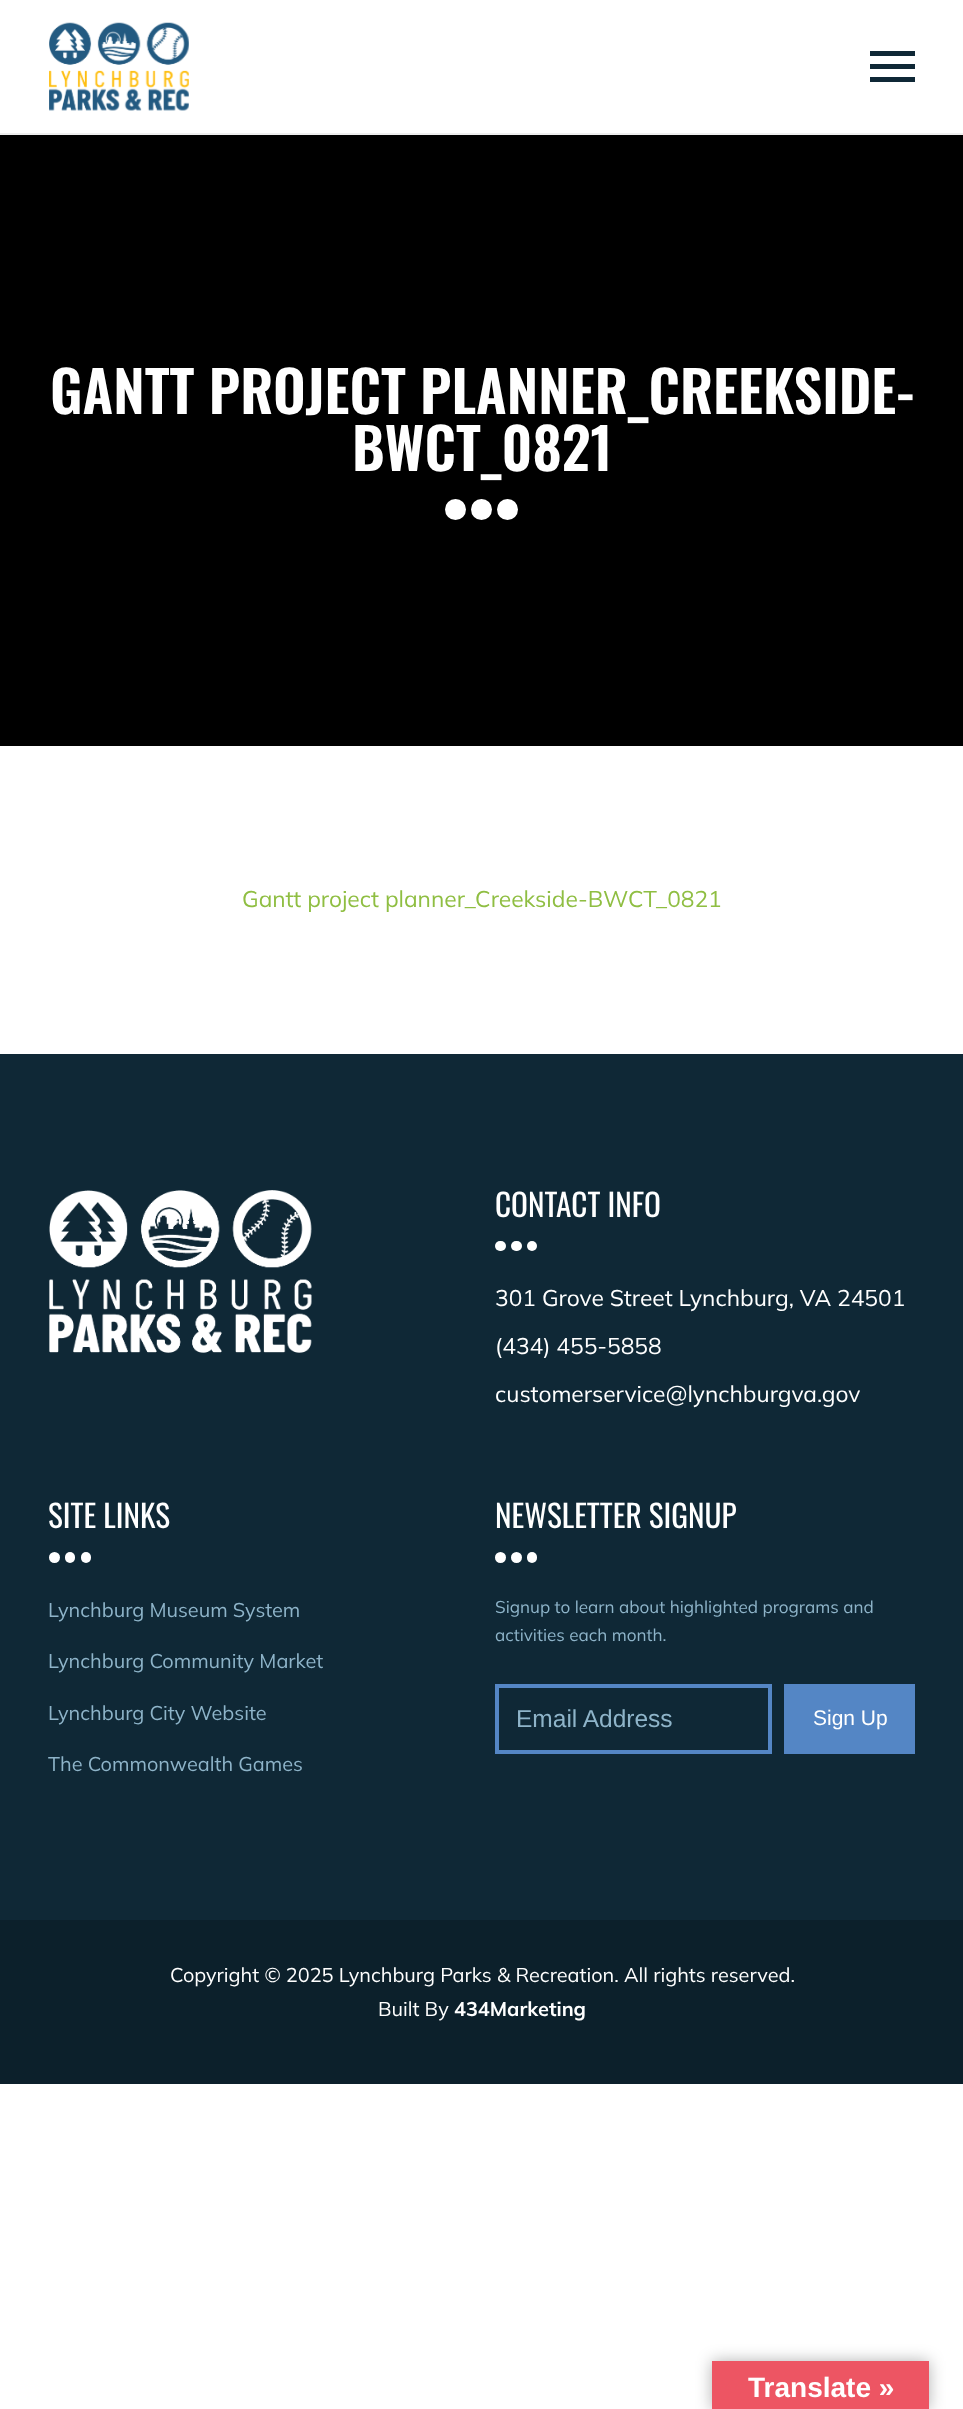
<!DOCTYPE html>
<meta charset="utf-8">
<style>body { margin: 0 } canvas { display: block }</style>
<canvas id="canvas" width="963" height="2409"></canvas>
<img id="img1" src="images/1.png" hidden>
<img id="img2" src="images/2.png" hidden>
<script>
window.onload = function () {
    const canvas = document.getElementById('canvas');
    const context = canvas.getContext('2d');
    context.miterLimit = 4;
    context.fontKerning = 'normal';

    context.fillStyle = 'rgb(255, 255, 255)';
    context.fillRect(0, 0, 963, 2409);
    context.fillStyle = 'rgb(238, 238, 238)';
    context.fillRect(0, 133, 963, 2);
    context.drawImage(document.getElementById('img1'), 49, 22, 140, 89);
    context.fillStyle = 'rgb(15, 40, 54)';
    context.beginPath();
    context.moveTo(870, 82);
    context.lineTo(915, 82);
    context.lineTo(915, 77);
    context.lineTo(870, 77);
    context.closePath();
    context.moveTo(870, 69);
    context.lineTo(915, 69);
    context.lineTo(915, 64);
    context.lineTo(870, 64);
    context.closePath();
    context.moveTo(870, 51);
    context.lineTo(870, 56);
    context.lineTo(915, 56);
    context.lineTo(915, 51);
    context.closePath();
    context.fill('evenodd');
    context.fillStyle = 'rgb(0, 0, 0)';
    context.fillRect(0, 135, 963, 611);
    context.fillStyle = 'rgb(255, 255, 255)';
    context.beginPath();
    context.arc(455.5, 509.5, 10.5, 0, 2 * Math.PI);
    context.fill();
    context.beginPath();
    context.arc(481.5, 509.5, 10.5, 0, 2 * Math.PI);
    context.fill();
    context.beginPath();
    context.arc(507.5, 509.5, 10.5, 0, 2 * Math.PI);
    context.fill();
    context.fillStyle = 'rgb(15, 40, 54)';
    context.fillRect(0, 1054, 963, 866);
    context.drawImage(document.getElementById('img2'), 49, 1190, 263, 163);
    context.fillStyle = 'rgb(255, 255, 255)';
    context.beginPath();
    context.roundRect(495, 1241, 11, 10, 5);
    context.fill();
    context.beginPath();
    context.roundRect(511, 1241, 11, 10, 5);
    context.fill();
    context.beginPath();
    context.arc(532, 1246, 5, 0, 2 * Math.PI);
    context.fill();
    context.beginPath();
    context.arc(54.5, 1557.5, 5.5, 0, 2 * Math.PI);
    context.fill();
    context.beginPath();
    context.roundRect(65, 1552, 10, 11, 5);
    context.fill();
    context.beginPath();
    context.roundRect(81, 1552, 10, 11, 5);
    context.fill();
    context.beginPath();
    context.arc(500.5, 1557.5, 5.5, 0, 2 * Math.PI);
    context.fill();
    context.beginPath();
    context.arc(516.5, 1557.5, 5.5, 0, 2 * Math.PI);
    context.fill();
    context.beginPath();
    context.roundRect(527, 1552, 10, 11, 5);
    context.fill();
    context.strokeStyle = 'rgb(84, 134, 197)';
    context.lineWidth = 4;
    context.strokeRect(497, 1686, 273, 66);
    context.fillStyle = 'rgb(84, 134, 197)';
    context.fillRect(784, 1684, 131, 70);
    context.fillStyle = 'rgb(12, 32, 43)';
    context.fillRect(0, 1920, 963, 164);
    context.fillStyle = 'rgba(0, 0, 0, 0.3)';
    context.filter = 'blur(8px)';
    context.beginPath();
    context.rect(712, 2361, 217, 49);
    context.fill();
    context.filter = 'none';
    context.fillStyle = 'rgb(237, 85, 99)';
    context.fillRect(712, 2361, 217, 48);
    context.font = '600 56.9px Oswald';
    context.fillStyle = 'rgb(255, 255, 255)';
    context.fillText('GANTT PROJECT PLANNER_CREEKSIDE-', 50, 414);
    context.fillText('BWCT_0821', 352, 471);
    context.font = '22.75px Mulish';
    context.fillStyle = 'rgb(143, 190, 66)';
    context.fillText('Gantt project planner_Creekside-BWCT_0821', 242, 907);
    context.font = '31.25px Oswald';
    context.fillStyle = 'rgb(255, 255, 255)';
    context.fillText('CONTACT INFO', 495, 1217);
    context.font = '22.75px Mulish';
    context.fillText('301 Grove Street Lynchburg, VA 24501', 495, 1306);
    context.fillText('(434) 455-5858', 495, 1354);
    context.fillText('customerservice@lynchburgva.gov', 495, 1402);
    context.font = '31.25px Oswald';
    context.fillText('SITE LINKS', 48, 1528);
    context.font = '19.9px Mulish';
    context.fillStyle = 'rgb(142, 180, 201)';
    context.fillText('Lynchburg Museum System', 48, 1617);
    context.fillText('Lynchburg Community Market', 48, 1668);
    context.fillText('Lynchburg City Website', 48, 1720);
    context.fillText('The Commonwealth Games', 48, 1771);
    context.font = '31.25px Oswald';
    context.fillStyle = 'rgb(255, 255, 255)';
    context.fillText('NEWSLETTER SIGNUP', 495, 1528);
    context.font = '17.1px Mulish';
    context.fillStyle = 'rgb(142, 180, 201)';
    context.fillText('Signup to learn about highlighted programs and', 495, 1613);
    context.fillText('activities each month.', 495, 1641);
    context.font = '24.5px Liberation Sans';
    context.fillText('Email Address', 516, 1727);
    context.font = '21px Liberation Sans';
    context.fillStyle = 'rgb(255, 255, 255)';
    context.fillText('Sign Up', 813, 1725);
    context.font = '19.9px Mulish';
    context.fillText('Copyright © 2025 Lynchburg Parks & Recreation. All rights reserved.', 170, 1982);
    context.fillText('Built By', 378, 2016);
    context.font = 'bold 19.9px Mulish';
    context.fillText('434Marketing', 454, 2016);
    context.font = 'bold 28px Liberation Sans';
    context.fillText('Translate »', 748, 2397);
};
</script>
